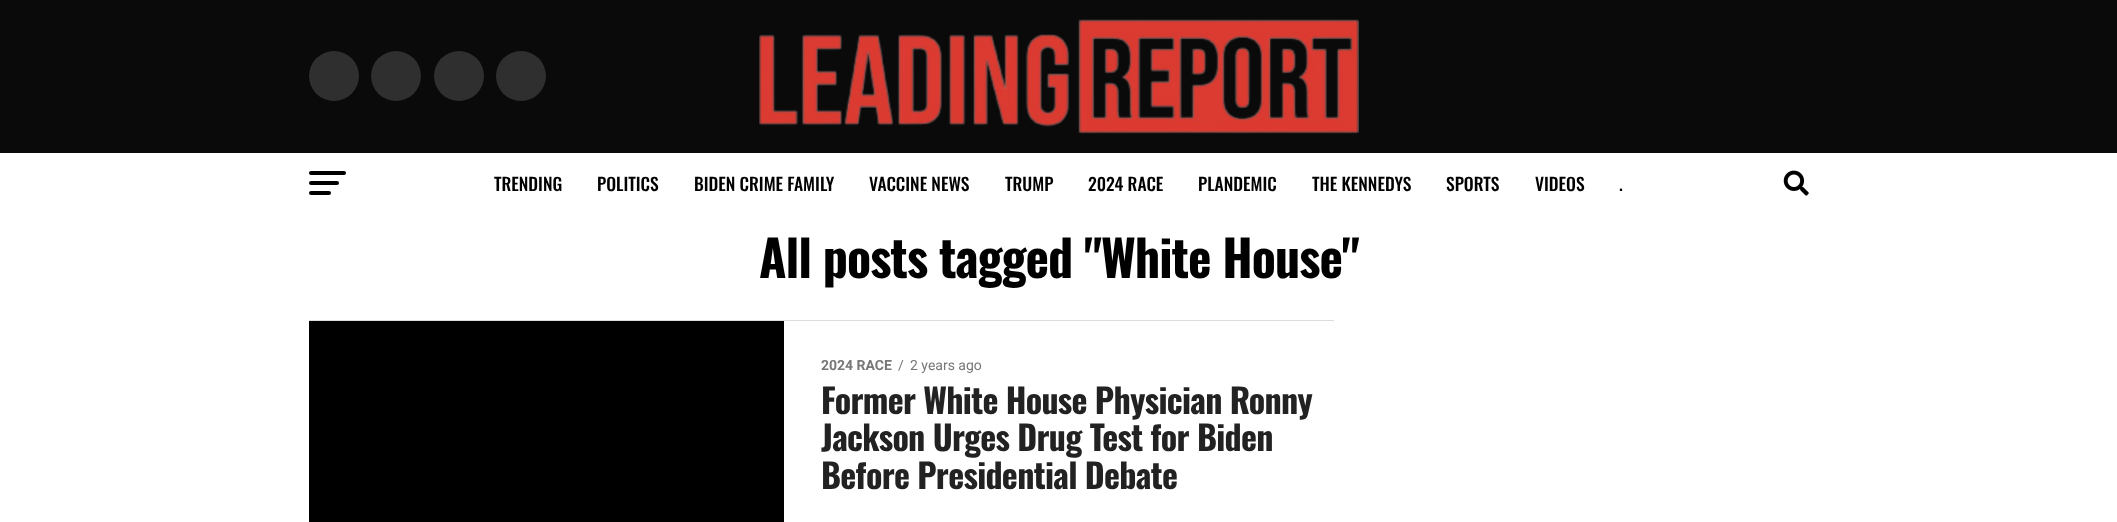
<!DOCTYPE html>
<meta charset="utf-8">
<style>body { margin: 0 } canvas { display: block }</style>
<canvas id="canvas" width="2117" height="522"></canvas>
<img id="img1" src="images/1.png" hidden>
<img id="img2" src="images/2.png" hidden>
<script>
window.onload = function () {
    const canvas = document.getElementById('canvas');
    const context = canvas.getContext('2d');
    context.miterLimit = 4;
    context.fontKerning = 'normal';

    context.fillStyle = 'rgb(255, 255, 255)';
    context.fillRect(0, 0, 2117, 522);
    context.fillStyle = 'rgb(10, 10, 10)';
    context.fillRect(0, 0, 2117, 153);
    context.fillStyle = 'rgb(47, 47, 47)';
    context.beginPath();
    context.arc(334, 76, 25, 0, 2 * Math.PI);
    context.fill();
    context.beginPath();
    context.arc(396, 76, 25, 0, 2 * Math.PI);
    context.fill();
    context.beginPath();
    context.arc(459, 76, 25, 0, 2 * Math.PI);
    context.fill();
    context.beginPath();
    context.arc(521, 76, 25, 0, 2 * Math.PI);
    context.fill();
    context.drawImage(document.getElementById('img1'), 759, 19, 600, 115);
    context.fillStyle = 'rgb(0, 0, 0)';
    context.beginPath();
    context.roundRect(309, 171, 37, 4, 2);
    context.fill();
    context.beginPath();
    context.roundRect(309, 181, 30, 4, 2);
    context.fill();
    context.beginPath();
    context.roundRect(309, 191, 22, 4, 2);
    context.fill();
    context.drawImage(document.getElementById('img2'), 1783, 170, 26, 26);
    context.fillStyle = 'rgb(221, 221, 221)';
    context.fillRect(309, 320, 1025, 1);
    context.fillStyle = 'rgb(0, 0, 0)';
    context.fillRect(309, 321, 475, 201);
    context.font = '500 17.5px Oswald';
    context.fillText('TRENDING', 494, 191);
    context.fillText('POLITICS', 597, 191);
    context.fillText('BIDEN CRIME FAMILY', 694, 191);
    context.fillText('VACCINE NEWS', 869, 191);
    context.fillText('TRUMP', 1005, 191);
    context.fillText('2024 RACE', 1088, 191);
    context.fillText('PLANDEMIC', 1198, 191);
    context.fillText('THE KENNEDYS', 1312, 191);
    context.fillText('SPORTS', 1446, 191);
    context.fillText('VIDEOS', 1535, 191);
    context.fillText('.', 1619, 191);
    context.letterSpacing = '-1px';
    context.font = 'bold 50px Oswald';
    context.fillText('All posts tagged "White House"', 759, 278);
    context.letterSpacing = '0px';
    context.font = 'bold 14px Roboto';
    context.fillStyle = 'rgb(119, 119, 119)';
    context.fillText('2024 RACE', 821, 370);
    context.font = '14px Roboto';
    context.fillText('/', 898, 370);
    context.fillText('2 years ago', 910, 370);
    context.letterSpacing = '-0.7px';
    context.font = 'bold 34px Oswald';
    context.fillStyle = 'rgb(34, 34, 34)';
    context.fillText('Former White House Physician Ronny', 821, 414);
    context.fillText('Jackson Urges Drug Test for Biden', 821, 451);
    context.fillText('Before Presidential Debate', 821, 489);
};
</script>
